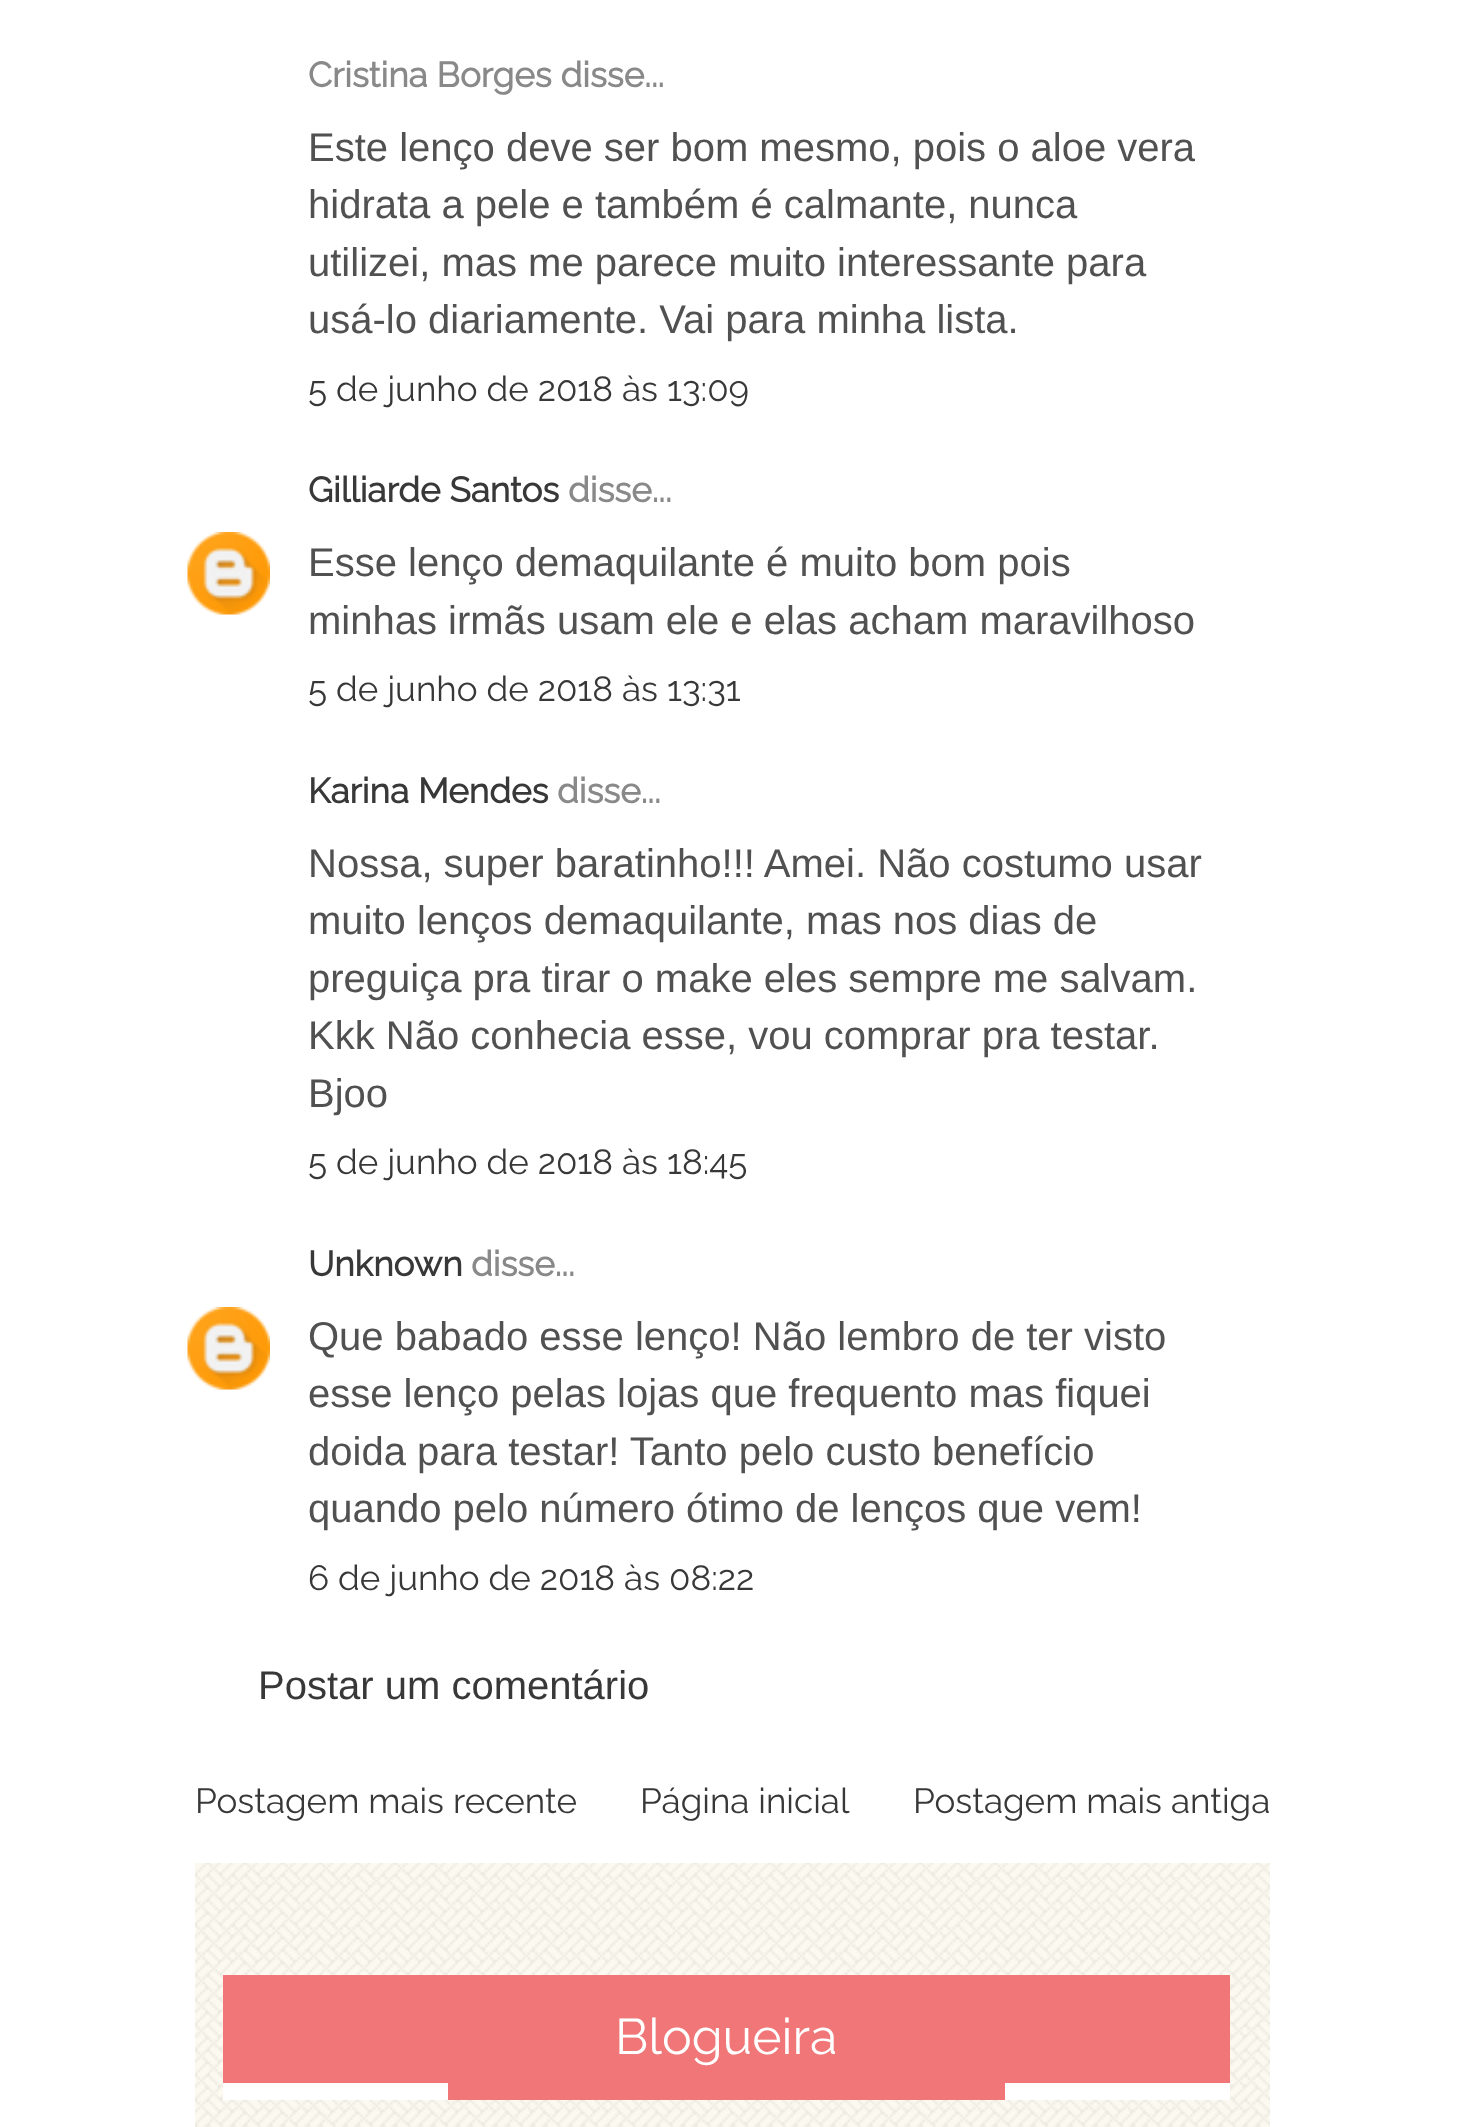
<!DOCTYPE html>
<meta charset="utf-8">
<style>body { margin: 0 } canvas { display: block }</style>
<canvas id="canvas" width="1463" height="2127"></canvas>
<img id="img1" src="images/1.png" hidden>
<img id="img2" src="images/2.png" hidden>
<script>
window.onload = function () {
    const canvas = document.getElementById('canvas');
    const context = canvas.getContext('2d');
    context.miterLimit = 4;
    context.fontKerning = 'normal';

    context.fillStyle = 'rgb(255, 255, 255)';
    context.fillRect(0, 0, 1463, 2127);
    context.drawImage(document.getElementById('img1'), 187, 532, 83, 83);
    context.drawImage(document.getElementById('img1'), 187, 1307, 83, 83);
    context.drawImage(document.getElementById('img2'), 195, 1863, 1075, 264);
    context.fillStyle = 'rgb(240, 118, 119)';
    context.fillRect(223, 1975, 1007, 125);
    context.fillStyle = 'rgb(255, 255, 255)';
    context.fillRect(223, 2083, 225, 17);
    context.fillRect(1005, 2083, 225, 17);
    context.font = 'bold 35px Raleway';
    context.fillStyle = 'rgb(137, 137, 137)';
    context.fillText('Cristina Borges disse...', 308, 87);
    context.font = '40px Liberation Sans';
    context.fillStyle = 'rgb(81, 81, 81)';
    context.fillText('Este lenço deve ser bom mesmo, pois o aloe vera', 308, 161);
    context.fillText('hidrata a pele e também é calmante, nunca', 308, 218);
    context.fillText('utilizei, mas me parece muito interessante para', 308, 276);
    context.fillText('usá-lo diariamente. Vai para minha lista.', 308, 333);
    context.font = '100 35px Raleway';
    context.fillStyle = 'rgb(56, 56, 56)';
    context.fillText('5 de junho de 2018 às 13:09', 308, 401);
    context.font = 'bold 35px Raleway';
    context.fillText('Gilliarde Santos', 308, 502);
    context.fillStyle = 'rgb(137, 137, 137)';
    context.fillText('disse...', 568, 502);
    context.font = '40px Liberation Sans';
    context.fillStyle = 'rgb(81, 81, 81)';
    context.fillText('Esse lenço demaquilante é muito bom pois', 308, 576);
    context.fillText('minhas irmãs usam ele e elas acham maravilhoso', 308, 634);
    context.font = '100 35px Raleway';
    context.fillStyle = 'rgb(56, 56, 56)';
    context.fillText('5 de junho de 2018 às 13:31', 308, 701);
    context.font = 'bold 35px Raleway';
    context.fillText('Karina Mendes', 308, 803);
    context.fillStyle = 'rgb(137, 137, 137)';
    context.fillText('disse...', 557, 803);
    context.font = '40px Liberation Sans';
    context.fillStyle = 'rgb(81, 81, 81)';
    context.fillText('Nossa, super baratinho!!! Amei. Não costumo usar', 308, 877);
    context.fillText('muito lenços demaquilante, mas nos dias de', 308, 934);
    context.fillText('preguiça pra tirar o make eles sempre me salvam.', 308, 992);
    context.fillText('Kkk Não conhecia esse, vou comprar pra testar.', 308, 1049);
    context.fillText('Bjoo', 308, 1107);
    context.font = '100 35px Raleway';
    context.fillStyle = 'rgb(56, 56, 56)';
    context.fillText('5 de junho de 2018 às 18:45', 308, 1174);
    context.font = 'bold 35px Raleway';
    context.fillText('Unknown', 308, 1276);
    context.fillStyle = 'rgb(137, 137, 137)';
    context.fillText('disse...', 471, 1276);
    context.font = '40px Liberation Sans';
    context.fillStyle = 'rgb(81, 81, 81)';
    context.fillText('Que babado esse lenço! Não lembro de ter visto', 308, 1350);
    context.fillText('esse lenço pelas lojas que frequento mas fiquei', 308, 1407);
    context.fillText('doida para testar! Tanto pelo custo benefício', 308, 1465);
    context.fillText('quando pelo número ótimo de lenços que vem!', 308, 1522);
    context.font = '100 35px Raleway';
    context.fillStyle = 'rgb(56, 56, 56)';
    context.fillText('6 de junho de 2018 às 08:22', 308, 1590);
    context.font = '40px Liberation Sans';
    context.fillText('Postar um comentário', 258, 1699);
    context.font = '100 35px Raleway';
    context.fillText('Postagem mais recente', 195, 1813);
    context.fillText('Página inicial', 640, 1813);
    context.fillText('Postagem mais antiga', 913, 1813);
    context.font = '100 50px Raleway';
    context.fillStyle = 'rgb(255, 255, 255)';
    context.fillText('Blogueira', 615, 2054);
};
</script>
